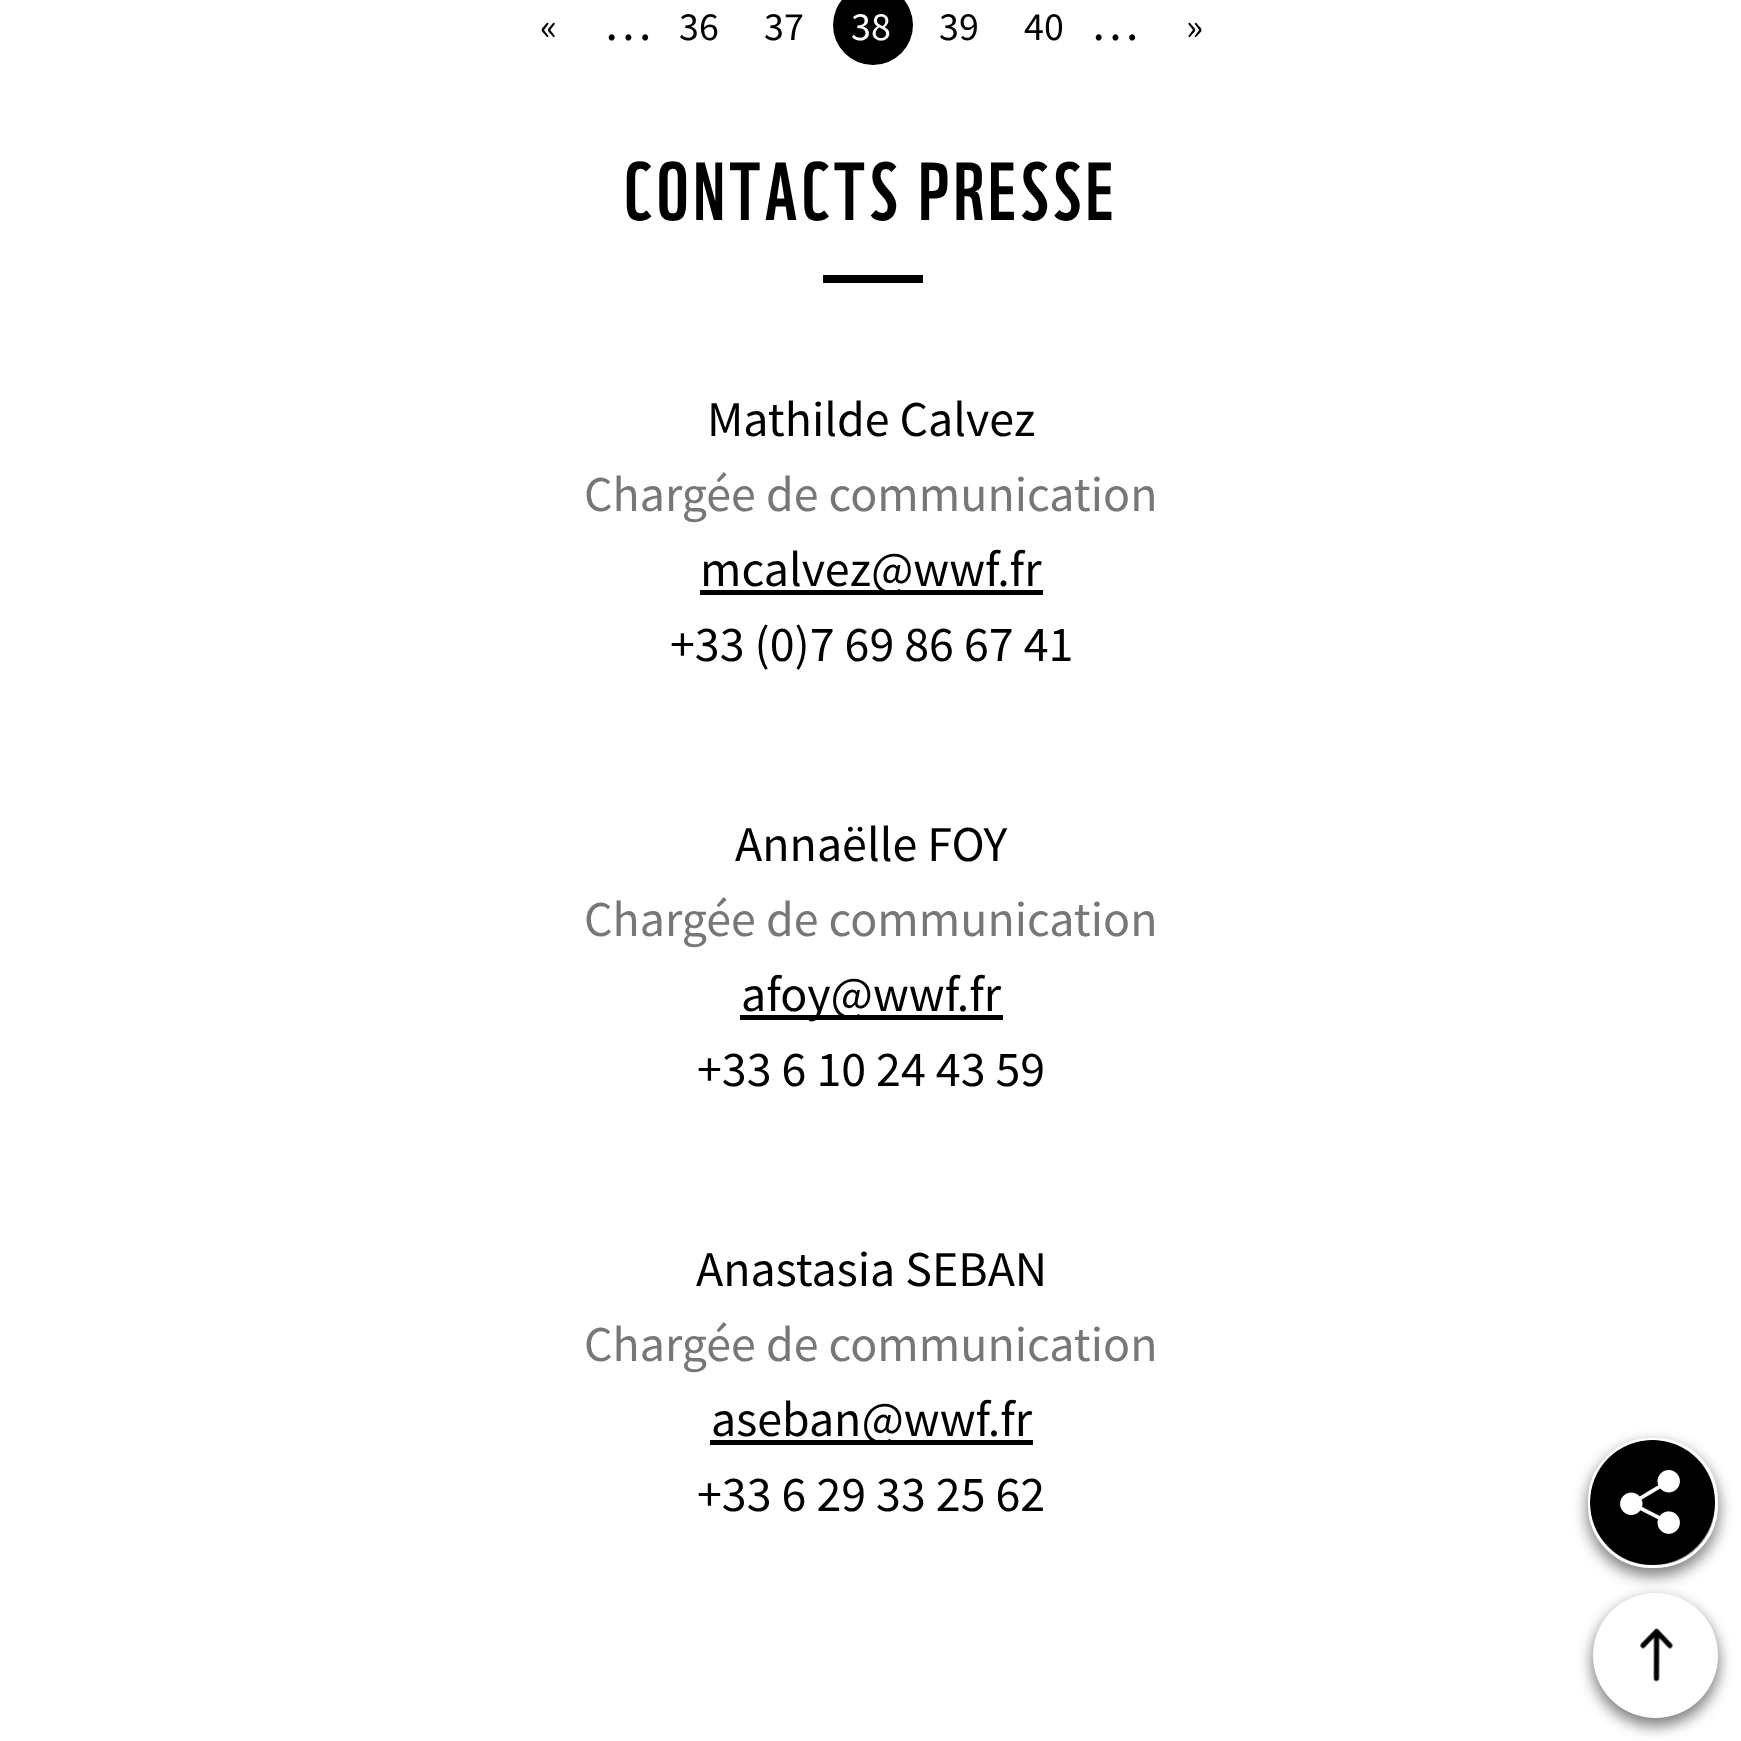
<!DOCTYPE html>
<meta charset="utf-8">
<style>body { margin: 0 } canvas { display: block }</style>
<canvas id="canvas" width="1741" height="1741"></canvas>
<img id="img1" src="images/1.png" hidden>
<img id="img2" src="images/2.png" hidden>
<script>
window.onload = function () {
    const canvas = document.getElementById('canvas');
    const context = canvas.getContext('2d');
    context.miterLimit = 4;
    context.fontKerning = 'normal';

    context.fillStyle = 'rgb(255, 255, 255)';
    context.fillRect(0, 0, 1741, 1741);
    context.fillStyle = 'rgb(0, 0, 0)';
    context.beginPath();
    context.arc(873, 25, 40, 0, 2 * Math.PI);
    context.fill();
    context.fillRect(823, 275, 100, 8);
    context.fillRect(700, 590, 343, 5);
    context.fillRect(740, 1015, 263, 5);
    context.fillRect(710, 1440, 323, 5);
    context.fillStyle = 'rgba(0, 0, 0, 0.25)';
    context.filter = 'blur(7.5px)';
    context.beginPath();
    context.roundRect(1593, 1600, 125, 125, 62.5);
    context.fill();
    context.filter = 'none';
    context.fillStyle = 'rgba(0, 0, 0, 0.36)';
    context.filter = 'blur(7.5px)';
    context.beginPath();
    context.roundRect(1593, 1600, 125, 125, 62.5);
    context.fill();
    context.filter = 'none';
    context.fillStyle = 'rgb(255, 255, 255)';
    context.beginPath();
    context.arc(1655.5, 1655.5, 62.5, 0, 2 * Math.PI);
    context.fill();
    context.fillStyle = 'rgba(0, 0, 0, 0.23)';
    context.filter = 'blur(7.5px)';
    context.beginPath();
    context.roundRect(1588, 1445, 130, 130, 63);
    context.fill();
    context.filter = 'none';
    context.fillStyle = 'rgba(0, 0, 0, 0.36)';
    context.filter = 'blur(7.5px)';
    context.beginPath();
    context.roundRect(1588, 1445, 130, 130, 63);
    context.fill();
    context.filter = 'none';
    context.beginPath();
    context.roundRect(1589.5, 1439.5, 127, 127, 61.5);
    context.strokeStyle = 'rgb(255, 255, 255)';
    context.lineWidth = 3;
    context.stroke();
    context.save();
    context.beginPath();
    context.roundRect(1590, 1440, 125, 125, 60);
    context.clip();
    context.fillStyle = 'rgb(0, 0, 0)';
    context.beginPath();
    context.arc(1652.5, 1502.5, 62.5, 0, 2 * Math.PI);
    context.fill();
    context.restore();
    context.drawImage(document.getElementById('img1'), 1620, 1470, 60, 64);
    context.drawImage(document.getElementById('img2'), 1639, 1628, 34, 54);
    context.font = '40px Source Sans Pro';
    context.fillStyle = 'rgb(0, 0, 0)';
    context.fillText('«', 540, 40);
    context.font = '50px Source Sans Pro';
    context.fillText('…', 604, 40);
    context.font = '40px Source Sans Pro';
    context.fillText('36', 679, 40);
    context.fillText('37', 764, 40);
    context.fillStyle = 'rgb(255, 255, 255)';
    context.fillText('38', 851, 40);
    context.fillStyle = 'rgb(0, 0, 0)';
    context.fillText('39', 939, 40);
    context.fillText('40', 1024, 40);
    context.font = '50px Source Sans Pro';
    context.fillText('…', 1091, 40);
    context.font = '40px Source Sans Pro';
    context.fillText('»', 1186, 40);
    context.letterSpacing = '4.5px';
    context.font = '80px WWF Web';
    context.fillText('CONTACTS PRESSE', 624, 220);
    context.letterSpacing = '0px';
    context.font = '50px Source Sans Pro';
    context.fillText('Mathilde Calvez', 707, 436);
    context.fillStyle = 'rgb(119, 119, 119)';
    context.fillText('Chargée de communication', 584, 511);
    context.fillStyle = 'rgb(0, 0, 0)';
    context.fillText('mcalvez@wwf.fr', 700, 586);
    context.fillText('+33 (0)7 69 86 67 41', 670, 661);
    context.fillText('Annaëlle FOY', 735, 861);
    context.fillStyle = 'rgb(119, 119, 119)';
    context.fillText('Chargée de communication', 584, 936);
    context.fillStyle = 'rgb(0, 0, 0)';
    context.fillText('afoy@wwf.fr', 741, 1011);
    context.fillText('+33 6 10 24 43 59', 697, 1086);
    context.fillText('Anastasia SEBAN', 696, 1286);
    context.fillStyle = 'rgb(119, 119, 119)';
    context.fillText('Chargée de communication', 584, 1361);
    context.fillStyle = 'rgb(0, 0, 0)';
    context.fillText('aseban@wwf.fr', 711, 1436);
    context.fillText('+33 6 29 33 25 62', 697, 1511);
};
</script>
